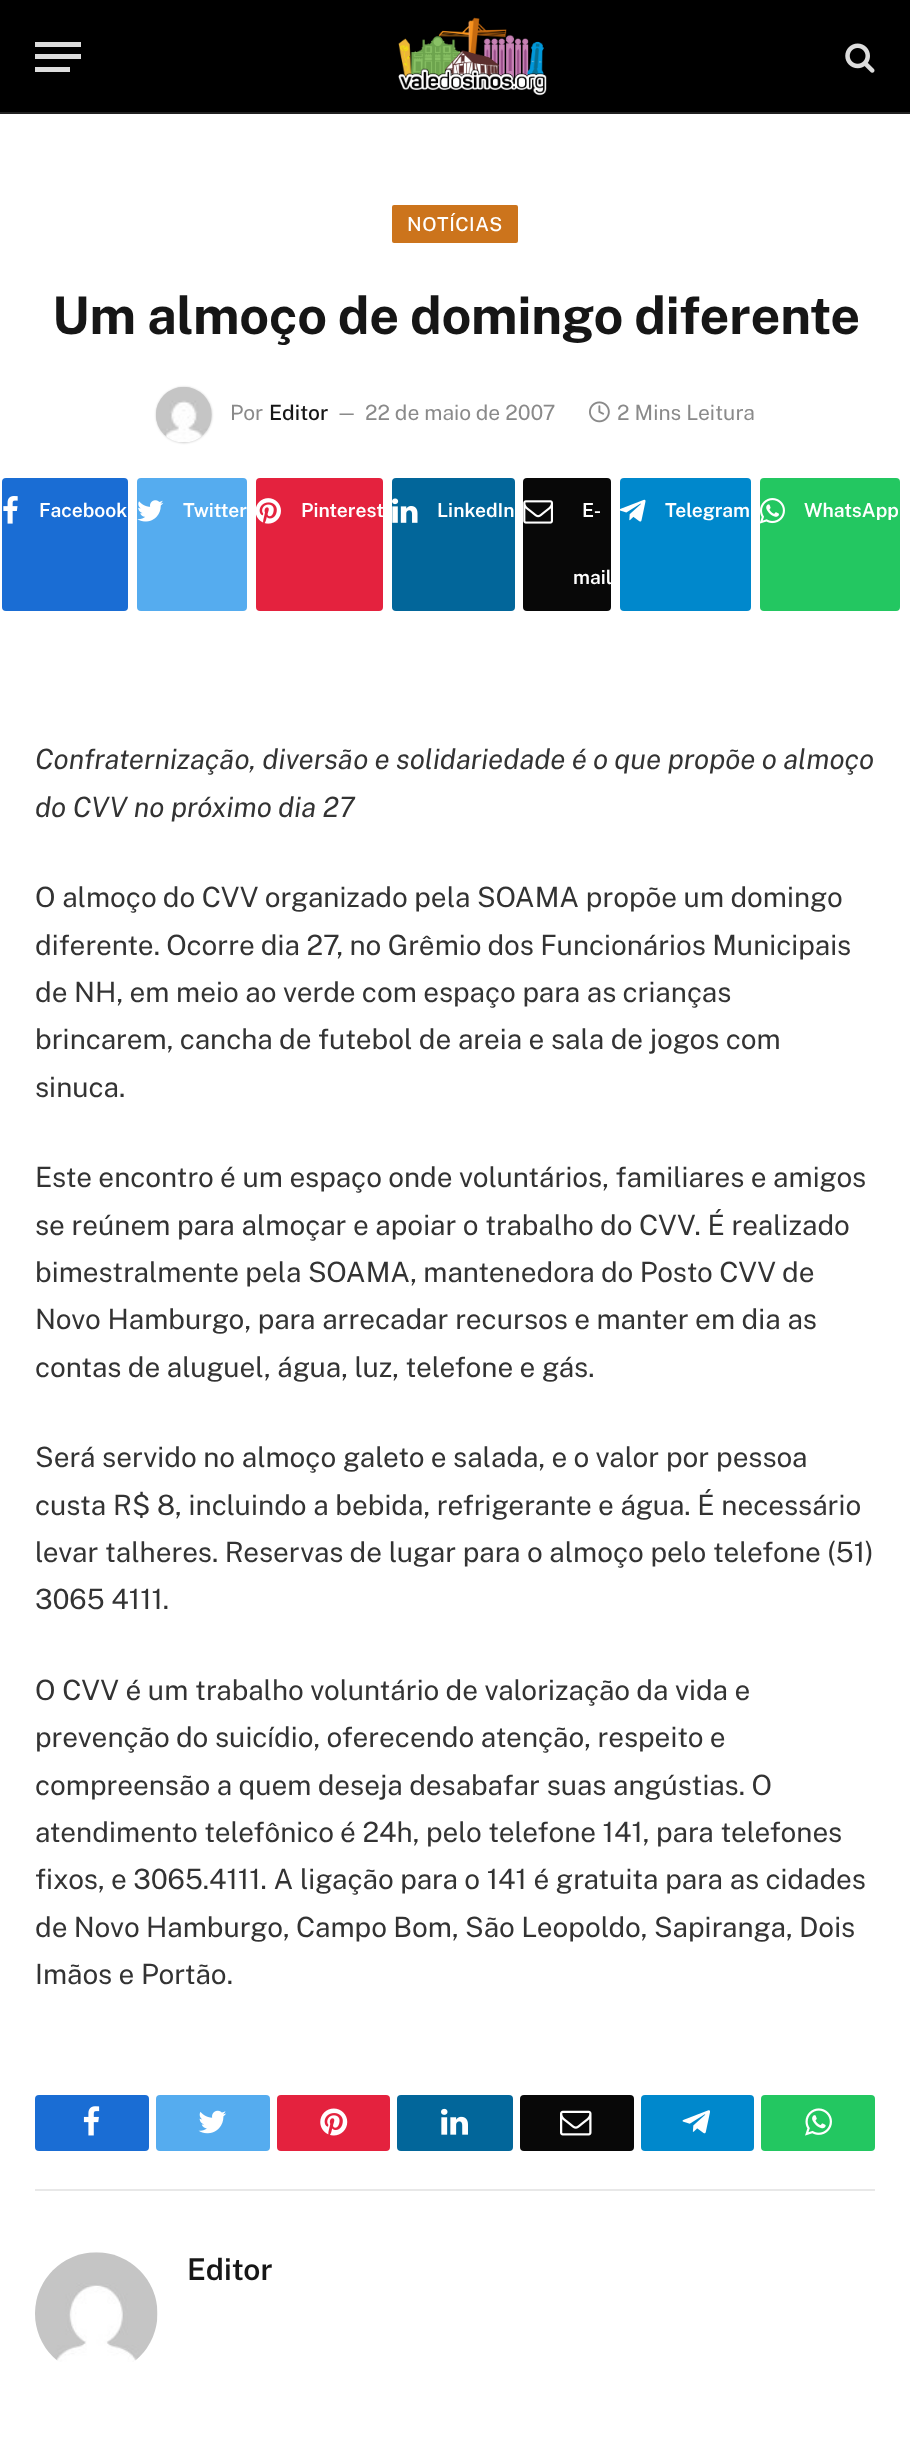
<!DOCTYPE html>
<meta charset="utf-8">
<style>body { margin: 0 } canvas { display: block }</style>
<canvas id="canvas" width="910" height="2440"></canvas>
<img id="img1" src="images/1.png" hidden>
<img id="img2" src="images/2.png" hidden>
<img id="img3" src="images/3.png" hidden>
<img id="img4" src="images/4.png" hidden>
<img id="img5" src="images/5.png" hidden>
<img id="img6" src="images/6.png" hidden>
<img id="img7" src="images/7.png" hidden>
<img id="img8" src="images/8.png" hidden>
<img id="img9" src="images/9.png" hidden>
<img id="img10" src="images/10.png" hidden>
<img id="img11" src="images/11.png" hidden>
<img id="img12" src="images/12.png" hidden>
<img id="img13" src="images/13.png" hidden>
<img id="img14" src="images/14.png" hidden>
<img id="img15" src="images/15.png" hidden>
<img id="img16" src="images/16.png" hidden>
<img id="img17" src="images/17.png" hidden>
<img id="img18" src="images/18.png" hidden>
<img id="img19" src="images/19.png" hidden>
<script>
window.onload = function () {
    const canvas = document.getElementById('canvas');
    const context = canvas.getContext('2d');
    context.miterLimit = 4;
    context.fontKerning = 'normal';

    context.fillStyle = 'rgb(255, 255, 255)';
    context.fillRect(0, 0, 910, 2440);
    context.fillStyle = 'rgb(0, 0, 0)';
    context.fillRect(0, 0, 910, 112);
    context.fillStyle = 'rgb(34, 34, 34)';
    context.fillRect(0, 112, 910, 2);
    context.fillStyle = 'rgb(221, 221, 221)';
    context.fillRect(35, 67, 35, 5);
    context.fillRect(35, 42, 46, 5);
    context.fillRect(35, 54, 46, 5);
    context.drawImage(document.getElementById('img1'), 398, 17, 149, 79);
    context.drawImage(document.getElementById('img2'), 845, 43, 30, 30);
    context.fillStyle = 'rgb(204, 116, 28)';
    context.beginPath();
    context.roundRect(392, 205, 126, 38, 2);
    context.fill();
    context.fillStyle = 'rgba(0, 0, 0, 0.2)';
    context.filter = 'blur(1px)';
    context.beginPath();
    context.roundRect(156, 387, 56, 56, 28);
    context.fill();
    context.filter = 'none';
    context.drawImage(document.getElementById('img3'), 156, 387, 56, 55);
    context.drawImage(document.getElementById('img4'), 589, 401, 21, 22);
    context.fillStyle = 'rgb(26, 109, 212)';
    context.beginPath();
    context.roundRect(2, 478, 126, 133, 4);
    context.fill();
    context.drawImage(document.getElementById('img5'), 3, 496, 15, 28);
    context.fillStyle = 'rgb(85, 172, 239)';
    context.beginPath();
    context.roundRect(137, 478, 110, 133, 4);
    context.fill();
    context.drawImage(document.getElementById('img6'), 137, 500, 27, 22);
    context.fillStyle = 'rgb(228, 34, 62)';
    context.beginPath();
    context.roundRect(256, 478, 127, 133, 4);
    context.fill();
    context.drawImage(document.getElementById('img7'), 256, 498, 25, 26);
    context.fillStyle = 'rgb(2, 102, 154)';
    context.beginPath();
    context.roundRect(392, 478, 123, 133, 4);
    context.fill();
    context.drawImage(document.getElementById('img8'), 392, 498, 26, 25);
    context.fillStyle = 'rgb(8, 8, 8)';
    context.beginPath();
    context.roundRect(523, 478, 88, 133, 4);
    context.fill();
    context.drawImage(document.getElementById('img9'), 523, 500, 30, 24);
    context.fillStyle = 'rgb(0, 136, 204)';
    context.beginPath();
    context.roundRect(620, 478, 131, 133, 4);
    context.fill();
    context.drawImage(document.getElementById('img10'), 620, 499, 26, 23);
    context.fillStyle = 'rgb(35, 199, 97)';
    context.beginPath();
    context.roundRect(760, 478, 140, 133, 4);
    context.fill();
    context.drawImage(document.getElementById('img11'), 760, 498, 25, 26);
    context.fillStyle = 'rgb(26, 109, 212)';
    context.beginPath();
    context.roundRect(35, 2095, 114, 56, 4);
    context.fill();
    context.drawImage(document.getElementById('img12'), 83, 2106, 17, 30);
    context.fillStyle = 'rgb(85, 172, 239)';
    context.beginPath();
    context.roundRect(156, 2095, 114, 56, 4);
    context.fill();
    context.drawImage(document.getElementById('img13'), 198, 2110, 28, 24);
    context.fillStyle = 'rgb(228, 34, 62)';
    context.beginPath();
    context.roundRect(277, 2095, 113, 56, 4);
    context.fill();
    context.drawImage(document.getElementById('img14'), 320, 2108, 28, 28);
    context.fillStyle = 'rgb(2, 102, 154)';
    context.beginPath();
    context.roundRect(397, 2095, 116, 56, 4);
    context.fill();
    context.drawImage(document.getElementById('img15'), 441, 2108, 27, 27);
    context.fillStyle = 'rgb(8, 8, 8)';
    context.beginPath();
    context.roundRect(520, 2095, 114, 56, 4);
    context.fill();
    context.drawImage(document.getElementById('img16'), 560, 2110, 32, 26);
    context.fillStyle = 'rgb(0, 136, 204)';
    context.beginPath();
    context.roundRect(641, 2095, 113, 56, 4);
    context.fill();
    context.drawImage(document.getElementById('img17'), 682, 2110, 28, 24);
    context.fillStyle = 'rgb(35, 199, 97)';
    context.beginPath();
    context.roundRect(761, 2095, 114, 56, 4);
    context.fill();
    context.drawImage(document.getElementById('img18'), 805, 2108, 27, 28);
    context.fillStyle = 'rgb(232, 232, 232)';
    context.fillRect(35, 2189, 840, 2);
    context.drawImage(document.getElementById('img19'), 35, 2252, 123, 110);
    context.letterSpacing = '0.5px';
    context.font = '500 19.25px Public Sans';
    context.fillStyle = 'rgb(255, 255, 255)';
    context.fillText('NOTÍCIAS', 407, 231);
    context.letterSpacing = '-0.25px';
    context.font = 'bold 52px Public Sans';
    context.fillStyle = 'rgb(22, 22, 22)';
    context.fillText('Um almoço de domingo diferente', 52, 334);
    context.letterSpacing = '0px';
    context.font = '21px Public Sans';
    context.fillStyle = 'rgb(138, 138, 138)';
    context.fillText('Por', 230, 420);
    context.font = '500 21px Public Sans';
    context.fillStyle = 'rgb(22, 22, 22)';
    context.fillText('Editor', 269, 420);
    context.font = '19px Public Sans';
    context.fillStyle = 'rgb(138, 138, 138)';
    context.fillText('—', 336, 419);
    context.font = '21px Public Sans';
    context.fillText('22 de maio de 2007', 365, 420);
    context.fillText('2 Mins Leitura', 617, 420);
    context.font = '600 19.25px Public Sans';
    context.fillStyle = 'rgb(255, 255, 255)';
    context.fillText('Facebook', 39, 517);
    context.fillText('Twitter', 183, 517);
    context.fillText('Pinterest', 301, 517);
    context.fillText('LinkedIn', 437, 517);
    context.fillText('E-', 582, 517);
    context.fillText('mail', 573, 584);
    context.fillText('Telegram', 665, 517);
    context.fillText('WhatsApp', 804, 517);
    context.wordSpacing = '-0.1px';
    context.font = 'italic 100 27.9px Public Sans';
    context.fillStyle = 'rgb(51, 51, 51)';
    context.fillText('Confraternização, diversão e solidariedade é o que propõe o almoço', 35, 769);
    context.wordSpacing = '0px';
    context.fillText('do CVV no próximo dia 27', 35, 817);
    context.wordSpacing = '-0.1px';
    context.font = '27.9px Public Sans';
    context.fillText('O almoço do CVV organizado pela SOAMA propõe um domingo', 35, 907);
    context.wordSpacing = '-0.25px';
    context.fillText('diferente. Ocorre dia 27, no Grêmio dos Funcionários Municipais', 35, 955);
    context.wordSpacing = '0px';
    context.fillText('de NH, em meio ao verde com espaço para as crianças', 35, 1002);
    context.fillText('brincarem, cancha de futebol de areia e sala de jogos com', 35, 1049);
    context.fillText('sinuca.', 35, 1097);
    context.fillText('Este encontro é um espaço onde voluntários, familiares e amigos', 35, 1187);
    context.fillText('se reúnem para almoçar e apoiar o trabalho do CVV. É realizado', 35, 1235);
    context.wordSpacing = '-0.25px';
    context.fillText('bimestralmente pela SOAMA, mantenedora do Posto CVV de', 35, 1282);
    context.wordSpacing = '0px';
    context.fillText('Novo Hamburgo, para arrecadar recursos e manter em dia as', 35, 1329);
    context.fillText('contas de aluguel, água, luz, telefone e gás.', 35, 1377);
    context.fillText('Será servido no almoço galeto e salada, e o valor por pessoa', 35, 1467);
    context.fillText('custa R$ 8, incluindo a bebida, refrigerante e água. É necessário', 35, 1515);
    context.fillText('levar talheres. Reservas de lugar para o almoço pelo telefone (51)', 35, 1562);
    context.fillText('3065 4111.', 35, 1609);
    context.fillText('O CVV é um trabalho voluntário de valorização da vida e', 35, 1700);
    context.fillText('prevenção do suicídio, oferecendo atenção, respeito e', 35, 1747);
    context.fillText('compreensão a quem deseja desabafar suas angústias. O', 35, 1795);
    context.wordSpacing = '-0.1px';
    context.fillText('atendimento telefônico é 24h, pelo telefone 141, para telefones', 35, 1842);
    context.wordSpacing = '0px';
    context.fillText('fixos, e 3065.4111. A ligação para o 141 é gratuita para as cidades', 35, 1889);
    context.wordSpacing = '-0.25px';
    context.fillText('de Novo Hamburgo, Campo Bom, São Leopoldo, Sapiranga, Dois', 35, 1937);
    context.wordSpacing = '0px';
    context.fillText('Imãos e Portão.', 35, 1984);
    context.font = '600 30px Public Sans';
    context.fillStyle = 'rgb(22, 22, 22)';
    context.fillText('Editor', 187, 2280);
};
</script>
